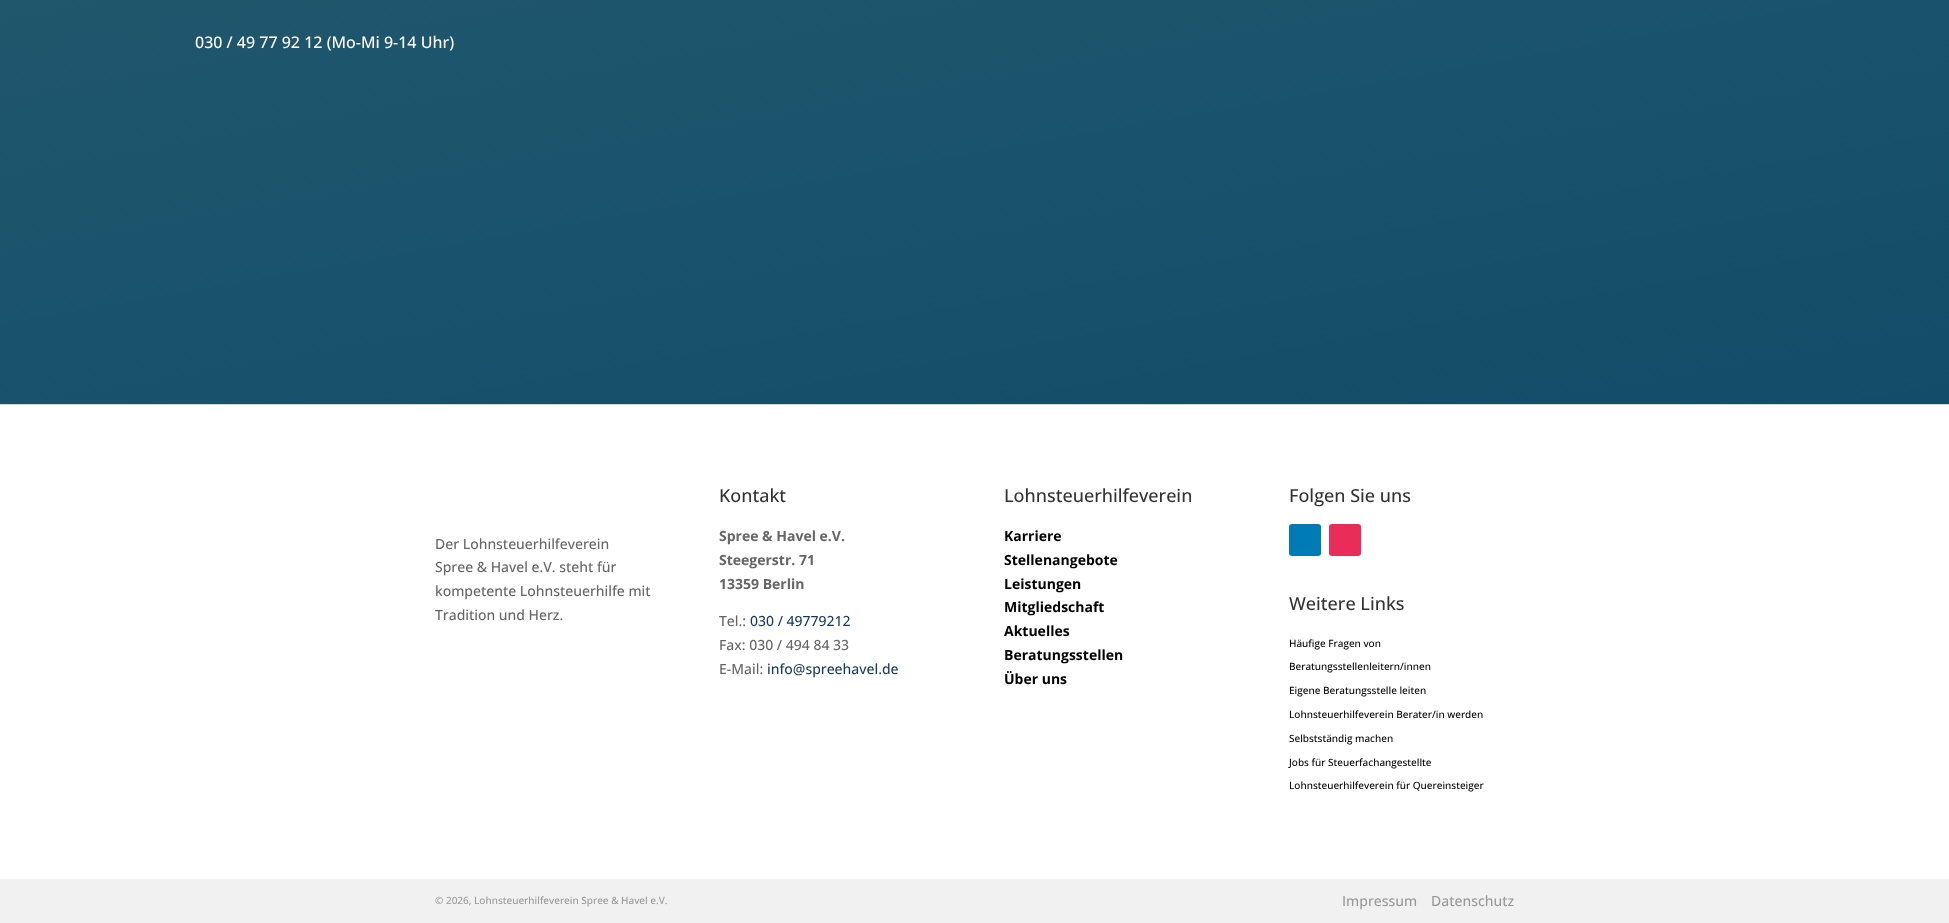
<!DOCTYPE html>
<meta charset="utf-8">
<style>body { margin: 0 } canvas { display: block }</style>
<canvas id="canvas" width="1949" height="923"></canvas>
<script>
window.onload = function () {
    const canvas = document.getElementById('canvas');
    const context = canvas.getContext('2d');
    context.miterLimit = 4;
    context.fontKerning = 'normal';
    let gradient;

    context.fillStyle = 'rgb(255, 255, 255)';
    context.fillRect(0, 0, 1949, 923);
    gradient = context.createLinearGradient(889, -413, 1060, 561);
    gradient.addColorStop(0, 'rgb(37, 90, 110)');
    gradient.addColorStop(1, 'rgb(17, 77, 105)');
    context.fillStyle = gradient;
    context.fillRect(0, 0, 1949, 404);
    context.fillStyle = 'rgb(214, 214, 214)';
    context.fillRect(0, 404, 1949, 1);
    context.fillStyle = 'rgb(0, 123, 182)';
    context.beginPath();
    context.roundRect(1289, 524, 32, 32, 3);
    context.fill();
    context.fillStyle = 'rgb(234, 44, 89)';
    context.beginPath();
    context.roundRect(1329, 524, 32, 32, 3);
    context.fill();
    context.fillStyle = 'rgb(241, 241, 241)';
    context.fillRect(0, 879, 1949, 44);
    context.font = '500 16px Open Sans';
    context.fillStyle = 'rgb(255, 255, 255)';
    context.fillText('030 / 49 77 92 12 (Mo-Mi 9-14 Uhr)', 195, 48);
    context.font = '500 14px Open Sans';
    context.fillStyle = 'rgb(102, 102, 102)';
    context.fillText('Der Lohnsteuerhilfeverein', 435, 549);
    context.fillText('Spree & Havel e.V. steht für', 435, 572);
    context.fillText('kompetente Lohnsteuerhilfe mit', 435, 596);
    context.fillText('Tradition und Herz.', 435, 620);
    context.font = '500 18px Open Sans';
    context.fillStyle = 'rgb(51, 51, 51)';
    context.fillText('Kontakt', 719, 502);
    context.font = 'bold 14px Open Sans';
    context.fillStyle = 'rgb(102, 102, 102)';
    context.fillText('Spree & Havel e.V.', 719, 541);
    context.fillText('Steegerstr. 71', 719, 565);
    context.fillText('13359 Berlin', 719, 589);
    context.font = '500 14px Open Sans';
    context.fillText('Tel.:', 719, 626);
    context.fillStyle = 'rgb(22, 57, 93)';
    context.fillText('030 / 49779212', 750, 626);
    context.fillStyle = 'rgb(102, 102, 102)';
    context.fillText('Fax: 030 / 494 84 33', 719, 650);
    context.fillText('E-Mail:', 719, 674);
    context.fillStyle = 'rgb(22, 57, 93)';
    context.fillText('info@spreehavel.de', 767, 674);
    context.font = '500 18px Open Sans';
    context.fillStyle = 'rgb(51, 51, 51)';
    context.fillText('Lohnsteuerhilfeverein', 1004, 502);
    context.font = 'bold 14px Open Sans';
    context.fillStyle = 'rgb(0, 0, 0)';
    context.fillText('Karriere', 1004, 541);
    context.fillText('Stellenangebote', 1004, 565);
    context.fillText('Leistungen', 1004, 589);
    context.fillText('Mitgliedschaft', 1004, 612);
    context.fillText('Aktuelles', 1004, 636);
    context.fillText('Beratungsstellen', 1004, 660);
    context.fillText('Über uns', 1004, 684);
    context.font = '500 18px Open Sans';
    context.fillStyle = 'rgb(51, 51, 51)';
    context.fillText('Folgen Sie uns', 1289, 502);
    context.fillText('Weitere Links', 1289, 610);
    context.font = '500 10px Open Sans';
    context.fillStyle = 'rgb(0, 0, 0)';
    context.fillText('Häufige Fragen von', 1289, 647);
    context.fillText('Beratungsstellenleitern/innen', 1289, 670);
    context.fillText('Eigene Beratungsstelle leiten', 1289, 694);
    context.fillText('Lohnsteuerhilfeverein Berater/in werden', 1289, 718);
    context.fillText('Selbstständig machen', 1289, 742);
    context.fillText('Jobs für Steuerfachangestellte', 1289, 766);
    context.fillText('Lohnsteuerhilfeverein für Quereinsteiger', 1289, 789);
    context.fillStyle = 'rgb(153, 153, 153)';
    context.fillText('© 2026, Lohnsteuerhilfeverein Spree & Havel e.V.', 435, 904);
    context.font = '500 14px Open Sans';
    context.fillText('Impressum', 1342, 906);
    context.fillText('Datenschutz', 1431, 906);
};
</script>
